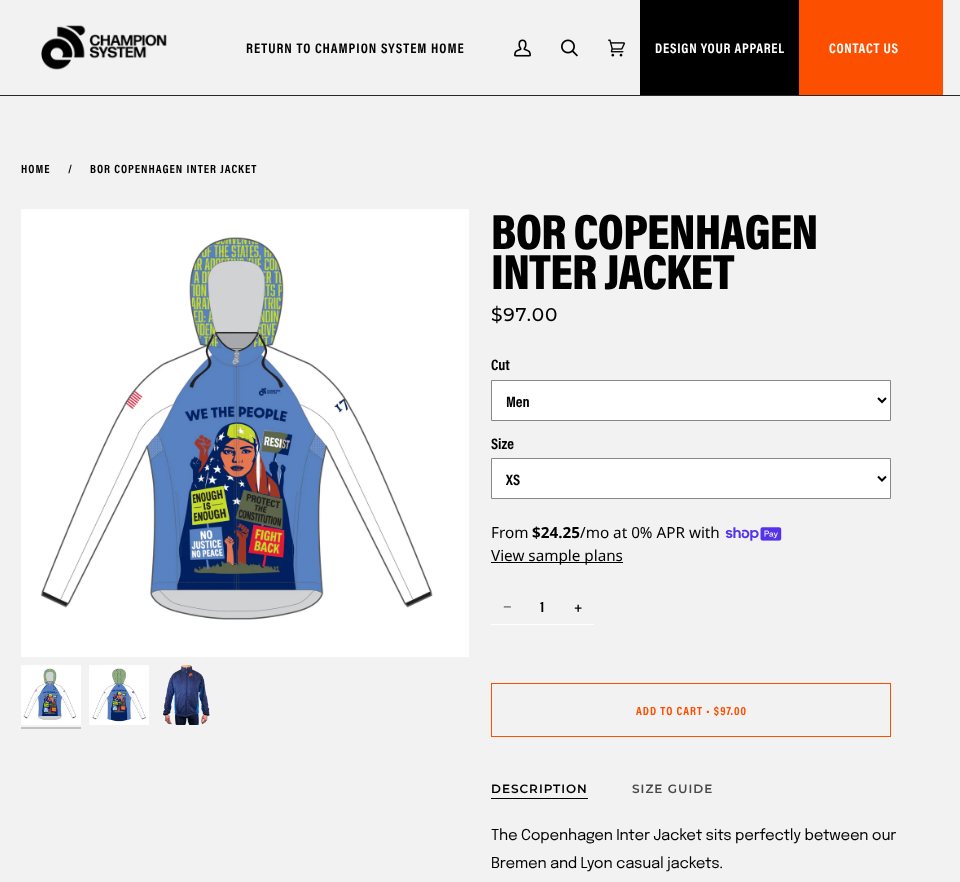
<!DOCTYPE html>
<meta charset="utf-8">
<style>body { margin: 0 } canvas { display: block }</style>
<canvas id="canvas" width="960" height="882"></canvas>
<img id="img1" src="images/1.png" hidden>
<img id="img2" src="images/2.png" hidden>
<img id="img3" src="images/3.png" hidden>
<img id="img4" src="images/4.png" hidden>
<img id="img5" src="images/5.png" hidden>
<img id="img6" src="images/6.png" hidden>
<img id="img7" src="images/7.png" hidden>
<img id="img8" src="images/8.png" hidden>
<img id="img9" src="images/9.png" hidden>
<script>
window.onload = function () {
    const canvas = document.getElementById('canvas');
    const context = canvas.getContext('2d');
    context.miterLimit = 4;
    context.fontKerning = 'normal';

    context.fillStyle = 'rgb(242, 242, 242)';
    context.fillRect(0, 0, 960, 882);
    context.fillStyle = 'rgb(40, 40, 40)';
    context.fillRect(0, 95, 960, 1);
    context.drawImage(document.getElementById('img1'), 41, 25, 126, 45);
    context.drawImage(document.getElementById('img2'), 514, 39, 17, 18);
    context.drawImage(document.getElementById('img3'), 561, 39, 17, 18);
    context.drawImage(document.getElementById('img4'), 608, 39, 17, 18);
    context.fillStyle = 'rgb(0, 0, 0)';
    context.fillRect(640, 0, 159, 95);
    context.fillStyle = 'rgb(252, 79, 0)';
    context.fillRect(799, 0, 144, 95);
    context.drawImage(document.getElementById('img5'), 21, 209, 448, 448);
    context.drawImage(document.getElementById('img6'), 21, 665, 60, 60);
    context.fillStyle = 'rgb(194, 194, 194)';
    context.fillRect(21, 727, 60, 2);
    context.drawImage(document.getElementById('img7'), 89, 665, 60, 60);
    context.drawImage(document.getElementById('img8'), 163, 665, 47, 60);
    context.fillStyle = 'rgb(255, 255, 255)';
    context.beginPath();
    context.rect(491.5, 380.5, 399, 40);
    context.fill();
    context.strokeStyle = 'rgb(136, 136, 136)';
    context.stroke();
    context.beginPath();
    context.moveTo(878, 398);
    context.lineTo(882, 402);
    context.lineTo(886, 398);
    context.strokeStyle = 'rgb(0, 0, 0)';
    context.lineWidth = 2;
    context.stroke();
    context.beginPath();
    context.rect(491.5, 458.5, 399, 40);
    context.fill();
    context.strokeStyle = 'rgb(136, 136, 136)';
    context.lineWidth = 1;
    context.stroke();
    context.beginPath();
    context.moveTo(878, 476.5);
    context.lineTo(882, 480.5);
    context.lineTo(886, 476.5);
    context.strokeStyle = 'rgb(0, 0, 0)';
    context.lineWidth = 2;
    context.stroke();
    context.drawImage(document.getElementById('img9'), 725, 527, 57, 14);
    context.fillStyle = 'rgb(0, 0, 0)';
    context.fillRect(491, 562, 132, 1);
    context.fillStyle = 'rgb(255, 255, 255)';
    context.fillRect(491, 624, 103, 1);
    context.strokeStyle = 'rgb(252, 79, 0)';
    context.lineWidth = 1;
    context.strokeRect(491.5, 683.5, 399, 53);
    context.fillStyle = 'rgb(0, 0, 0)';
    context.fillRect(491, 798, 97, 1);
    context.letterSpacing = '1px';
    context.font = 'bold 14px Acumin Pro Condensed';
    context.fillText('RETURN TO CHAMPION SYSTEM HOME', 246, 53);
    context.letterSpacing = '0.75px';
    context.fillStyle = 'rgb(255, 255, 255)';
    context.fillText('DESIGN YOUR APPAREL', 655, 53);
    context.fillText('CONTACT US', 829, 53);
    context.letterSpacing = '1px';
    context.font = 'bold 12px Acumin Pro Condensed';
    context.fillStyle = 'rgb(0, 0, 0)';
    context.fillText('HOME', 21, 173);
    context.fillText('/', 68, 173);
    context.fillText('BOR COPENHAGEN INTER JACKET', 90, 173);
    context.letterSpacing = '-0.75px';
    context.font = '900 50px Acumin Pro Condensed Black';
    context.fillText('BOR COPENHAGEN', 491, 249);
    context.fillText('INTER JACKET', 491, 289);
    context.letterSpacing = '1px';
    context.font = '500 18.5px Montserrat';
    context.fillText('$97.00', 491, 321);
    context.letterSpacing = '0px';
    context.font = 'bold 15.25px Acumin Pro Condensed';
    context.fillText('Cut', 491, 370);
    context.fillText('Men', 506, 407);
    context.fillText('Size', 491, 449);
    context.fillText('XS', 506, 485);
    context.font = '15.25px Noto Sans';
    context.fillText('From', 491, 538);
    context.font = 'bold 15.25px Noto Sans';
    context.fillText('$24.25', 532, 538);
    context.font = '15.25px Noto Sans';
    context.fillText('/mo at 0% APR with', 580, 538);
    context.fillText('View sample plans', 491, 561);
    context.font = '15.25px Liberation Serif';
    context.fillText('−', 503, 612);
    context.font = 'bold 15.25px Acumin Pro Condensed';
    context.fillText('1', 540, 612);
    context.fillText('+', 574, 612);
    context.letterSpacing = '1px';
    context.font = 'bold 12px Acumin Pro Condensed';
    context.fillStyle = 'rgb(252, 79, 0)';
    context.fillText('ADD TO CART • $97.00', 636, 715);
    context.font = '600 12px Montserrat';
    context.fillStyle = 'rgb(0, 0, 0)';
    context.fillText('DESCRIPTION', 491, 793);
    context.fillStyle = 'rgb(73, 73, 73)';
    context.fillText('SIZE GUIDE', 632, 793);
    context.letterSpacing = '-0.23px';
    context.font = '15px Epilogue';
    context.fillStyle = 'rgb(0, 0, 0)';
    context.fillText('The Copenhagen Inter Jacket sits perfectly between our', 491, 840);
    context.fillText('Bremen and Lyon casual jackets.', 491, 868);
};
</script>
